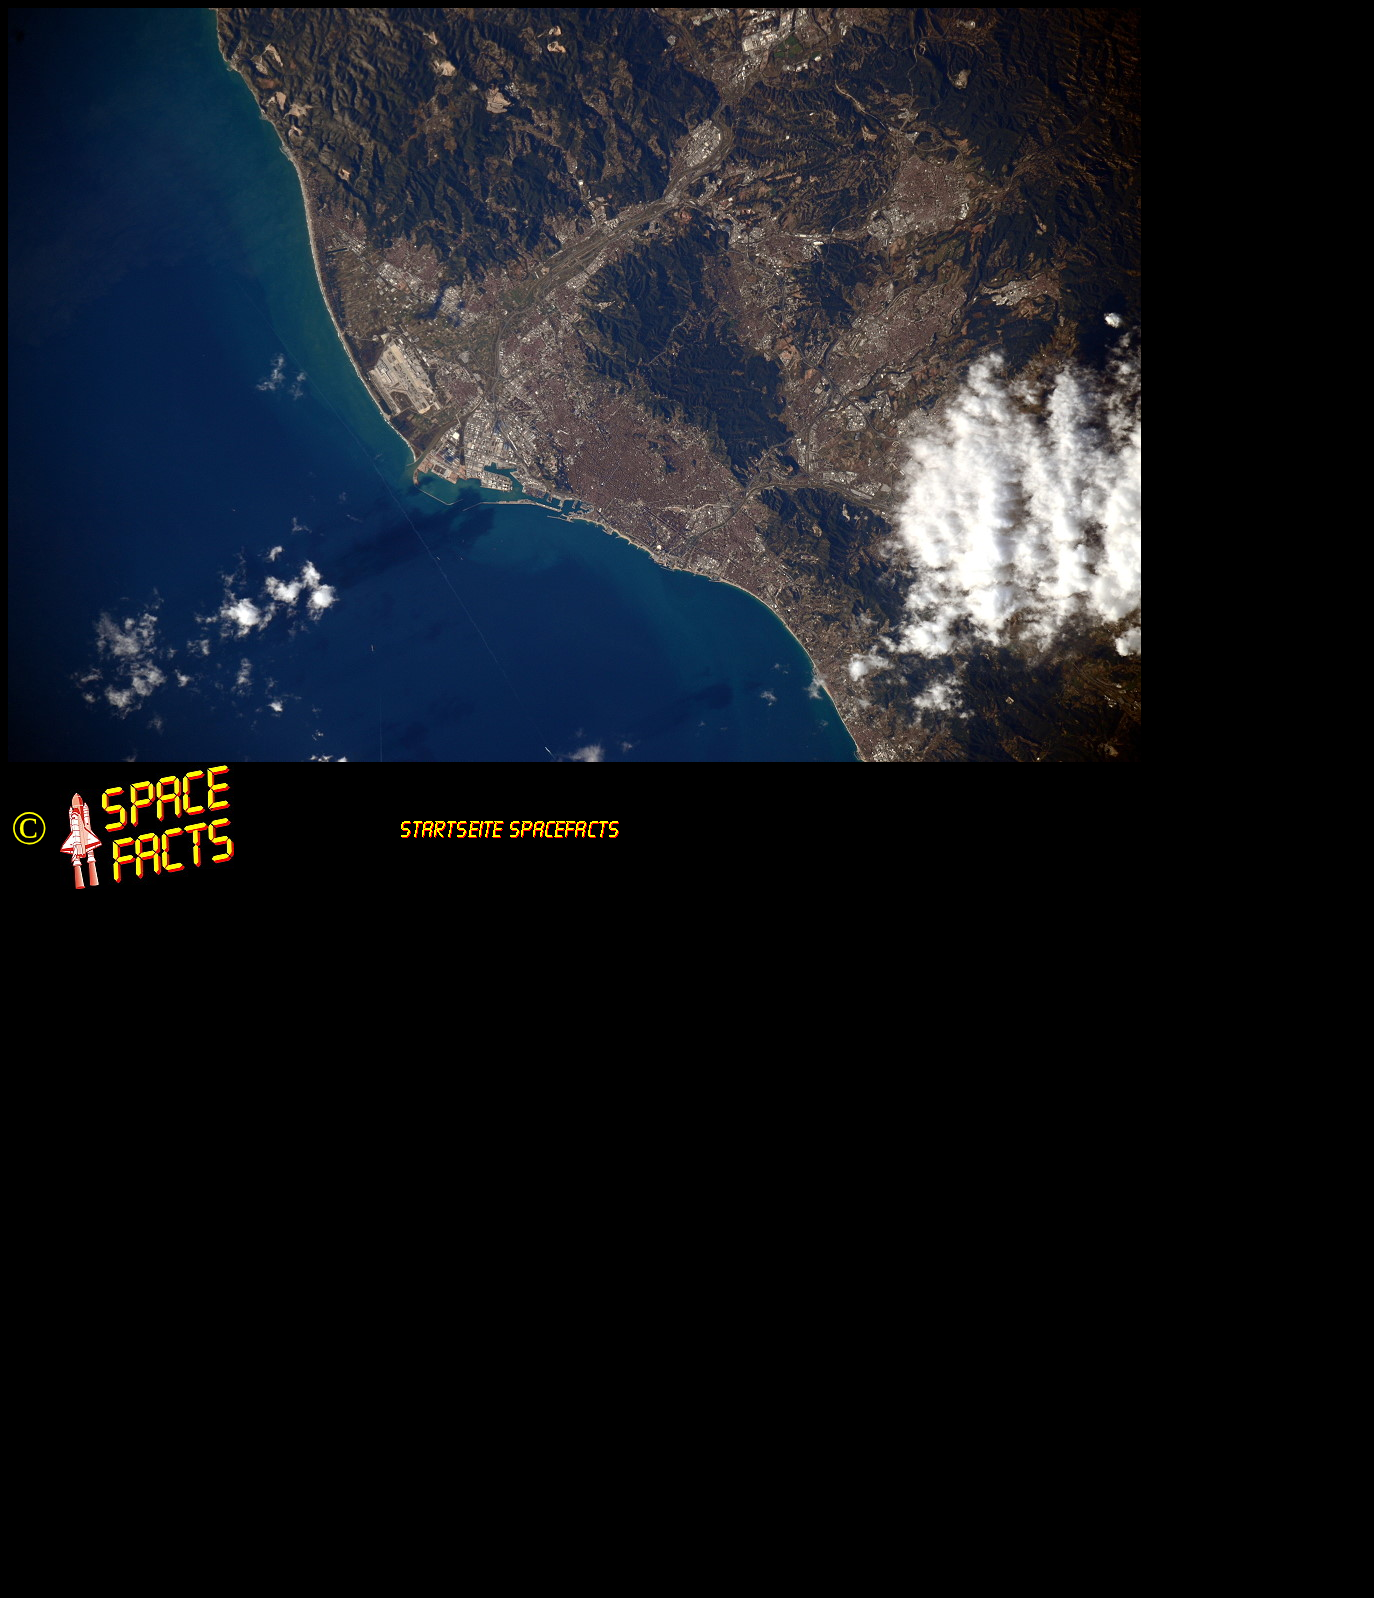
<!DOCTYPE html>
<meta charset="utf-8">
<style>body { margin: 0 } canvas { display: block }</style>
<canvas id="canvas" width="1374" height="1598"></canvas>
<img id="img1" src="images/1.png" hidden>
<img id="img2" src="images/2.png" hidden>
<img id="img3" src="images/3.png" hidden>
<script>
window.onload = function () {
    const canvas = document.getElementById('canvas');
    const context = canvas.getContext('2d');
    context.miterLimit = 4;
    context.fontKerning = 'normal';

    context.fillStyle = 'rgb(0, 0, 0)';
    context.fillRect(0, 0, 1374, 1598);
    context.drawImage(document.getElementById('img1'), 8, 8, 1133, 754);
    context.drawImage(document.getElementById('img2'), 60, 765, 174, 124);
    context.drawImage(document.getElementById('img3'), 401, 821, 218, 17);
    context.font = '48px Liberation Serif';
    context.fillStyle = 'rgb(255, 255, 0)';
    context.fillText('©', 11, 844);
};
</script>
